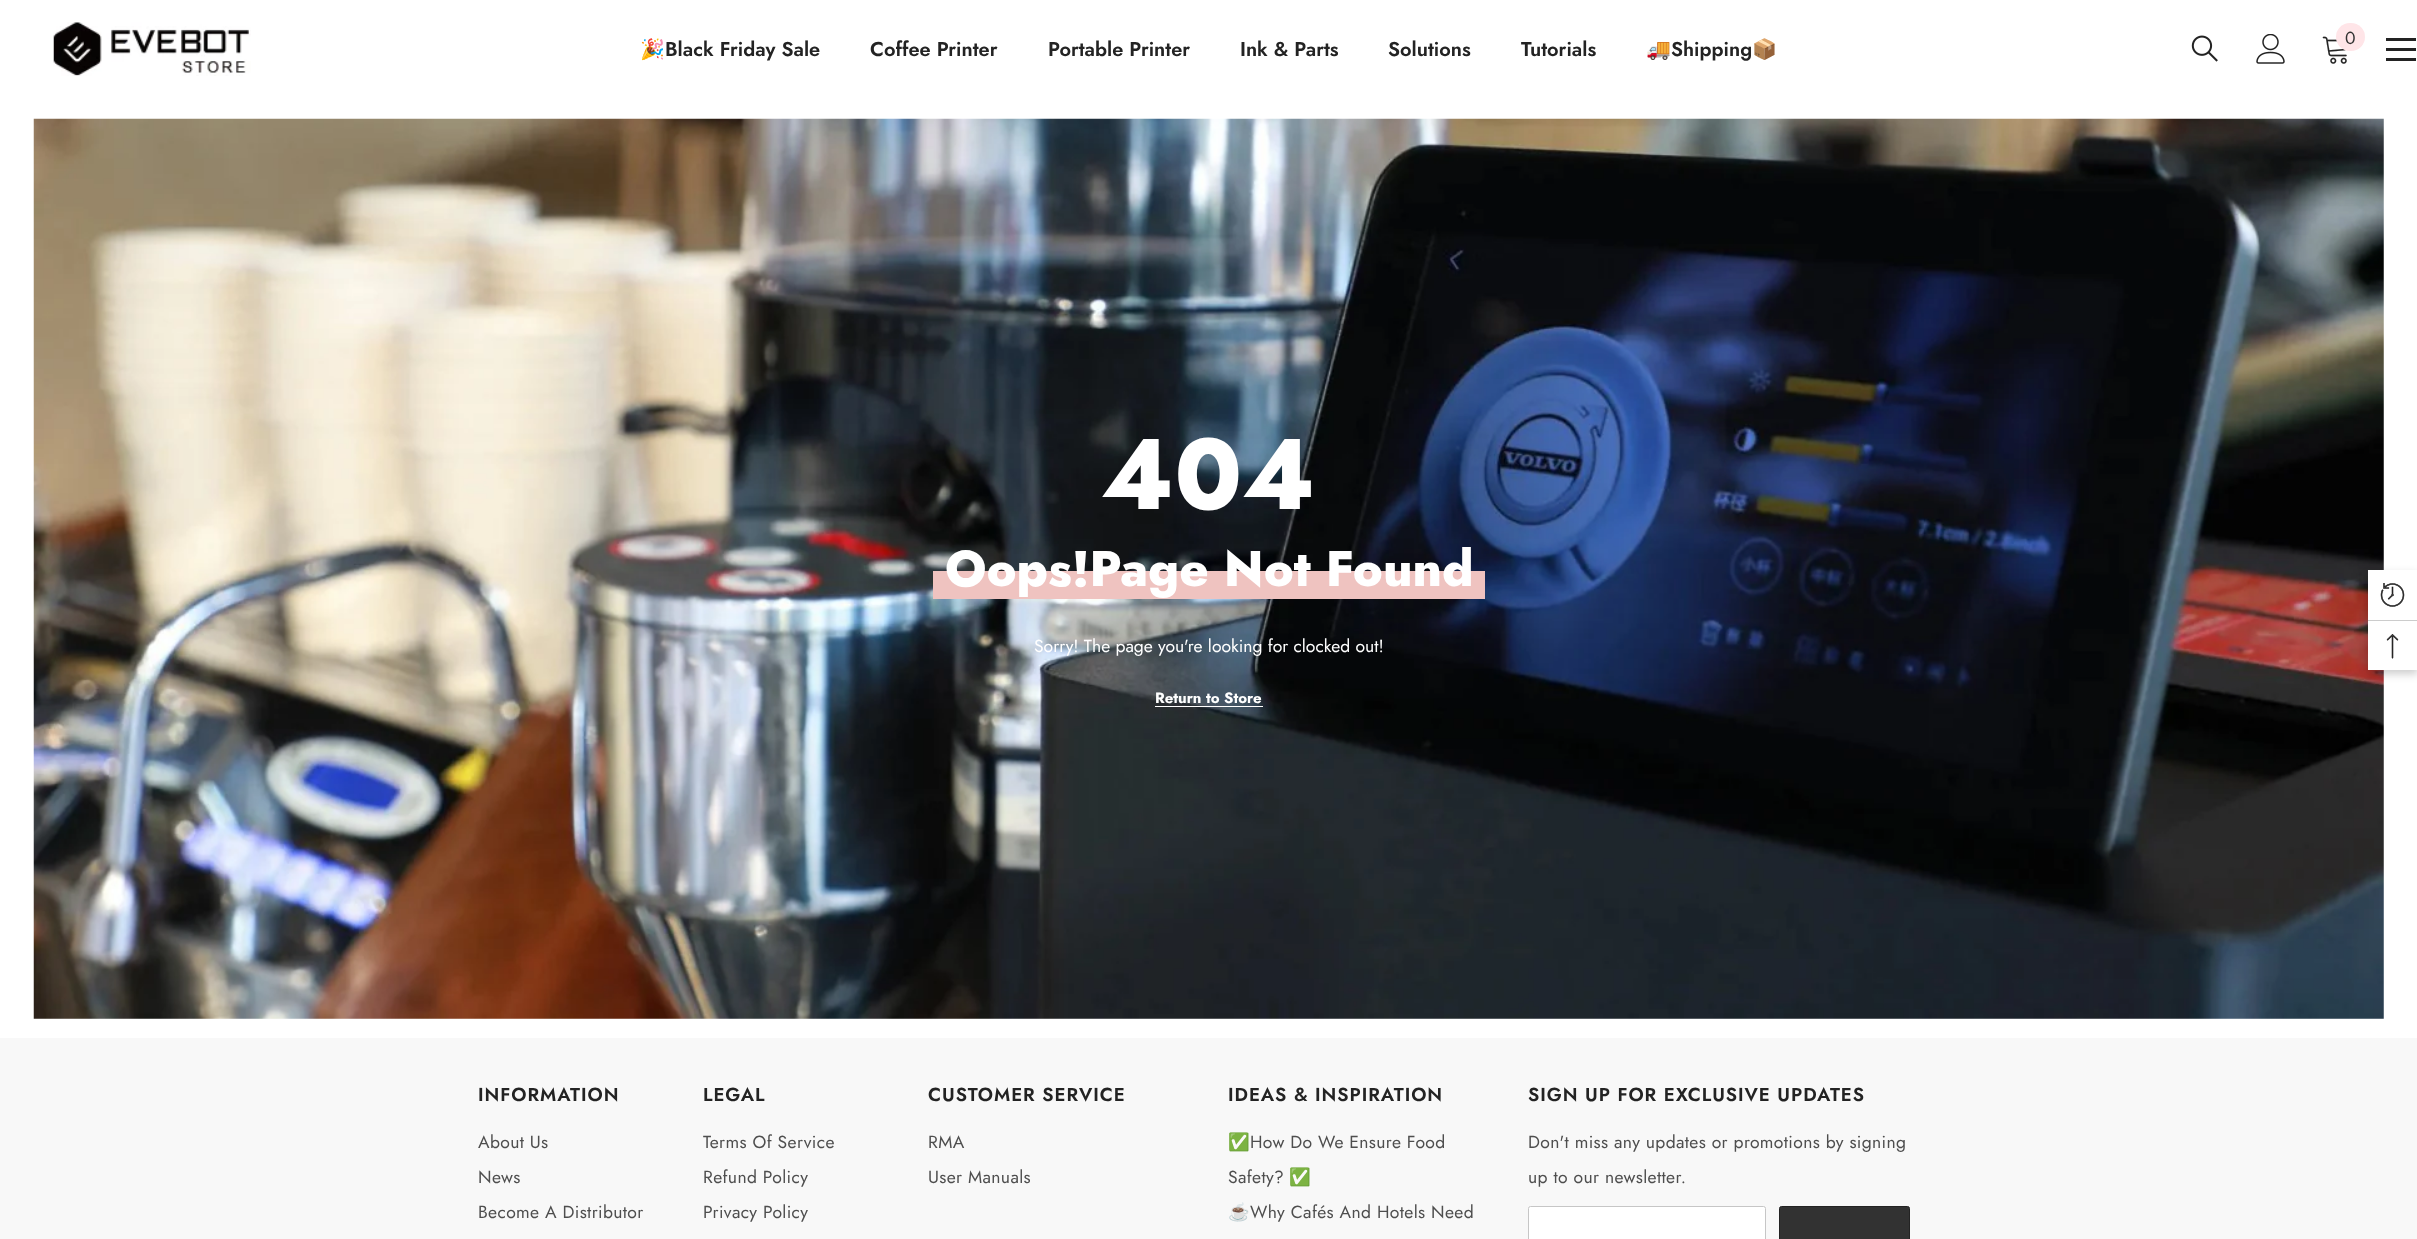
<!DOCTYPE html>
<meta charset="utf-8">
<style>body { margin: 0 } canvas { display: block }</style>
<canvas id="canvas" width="2417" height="1239"></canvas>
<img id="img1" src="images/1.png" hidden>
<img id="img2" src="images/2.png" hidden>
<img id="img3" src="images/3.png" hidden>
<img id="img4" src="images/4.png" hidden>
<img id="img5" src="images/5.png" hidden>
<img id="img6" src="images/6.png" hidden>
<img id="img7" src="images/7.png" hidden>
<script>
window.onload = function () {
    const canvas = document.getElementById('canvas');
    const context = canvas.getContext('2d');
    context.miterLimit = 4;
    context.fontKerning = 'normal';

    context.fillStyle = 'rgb(255, 255, 255)';
    context.fillRect(0, 0, 2417, 1239);
    context.drawImage(document.getElementById('img1'), 53, 22, 198, 54);
    context.drawImage(document.getElementById('img2'), 2191, 35, 27, 27);
    context.drawImage(document.getElementById('img3'), 2256, 34, 29, 30);
    context.drawImage(document.getElementById('img4'), 2322, 36, 25, 28);
    context.fillStyle = 'rgb(255, 229, 232)';
    context.beginPath();
    context.roundRect(2336, 23, 29, 28, 14);
    context.fill();
    context.fillStyle = 'rgb(35, 35, 35)';
    context.fillRect(2386, 48, 30, 3);
    context.fillRect(2386, 38, 30, 3);
    context.fillRect(2386, 58, 30, 3);
    context.drawImage(document.getElementById('img5'), 33, 118, 2351, 901);
    context.fillStyle = 'rgb(239, 195, 192)';
    context.fillRect(933, 571, 552, 28);
    context.fillStyle = 'rgb(255, 255, 255)';
    context.fillRect(1155, 706, 108, 1);
    context.fillStyle = 'rgb(248, 248, 248)';
    context.fillRect(0, 1038, 2417, 201);
    context.fillStyle = 'rgb(255, 255, 255)';
    context.beginPath();
    context.roundRect(1528.5, 1206.5, 237, 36, 2);
    context.fill();
    context.strokeStyle = 'rgb(198, 198, 198)';
    context.stroke();
    context.fillStyle = 'rgb(50, 50, 50)';
    context.beginPath();
    context.roundRect(1779.5, 1206.5, 130, 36, 2);
    context.fill();
    context.strokeStyle = 'rgb(35, 35, 35)';
    context.stroke();
    context.fillStyle = 'rgba(0, 0, 0, 0.2)';
    context.filter = 'blur(4.5px)';
    context.beginPath();
    context.rect(2368, 574, 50, 100);
    context.fill();
    context.filter = 'none';
    context.fillStyle = 'rgb(255, 255, 255)';
    context.fillRect(2368, 570, 49, 100);
    context.drawImage(document.getElementById('img6'), 2380, 583, 25, 24);
    context.fillStyle = 'rgb(204, 204, 204)';
    context.fillRect(2368, 620, 49, 1);
    context.drawImage(document.getElementById('img7'), 2386, 634, 13, 25);
    context.font = 'bold 20px Noto Color Emoji';
    context.fillStyle = 'rgb(35, 35, 35)';
    context.fillText('🎉', 640, 56);
    context.font = '600 20px Jost';
    context.fillText('Black Friday Sale', 665, 56);
    context.fillText('Coffee Printer', 870, 56);
    context.fillText('Portable Printer', 1048, 56);
    context.fillText('Ink & Parts', 1240, 56);
    context.fillText('Solutions', 1388, 56);
    context.fillText('Tutorials', 1521, 56);
    context.font = 'bold 20px Noto Color Emoji';
    context.fillText('🚚', 1646, 56);
    context.font = '600 20px Jost';
    context.fillText('Shipping', 1671, 56);
    context.font = 'bold 20px Noto Color Emoji';
    context.fillText('📦', 1752, 56);
    context.font = '17.5px Jost';
    context.fillStyle = 'rgb(50, 50, 50)';
    context.fillText('0', 2345, 44);
    context.font = '800 100px Jost';
    context.fillStyle = 'rgb(255, 255, 255)';
    context.fillText('404', 1101, 509);
    context.font = '800 50px Jost';
    context.fillText('Oops!Page Not Found', 945, 586);
    context.font = '17.5px Jost';
    context.fillText('Sorry! The page you\'re looking for clocked out!', 1034, 652);
    context.font = 'bold 15px Jost';
    context.fillText('Return to Store', 1155, 703);
    context.letterSpacing = '0.95px';
    context.font = '600 18.75px Jost';
    context.fillStyle = 'rgb(35, 35, 35)';
    context.fillText('INFORMATION', 478, 1101);
    context.letterSpacing = '0.35px';
    context.font = '17.5px Jost';
    context.fillStyle = 'rgb(78, 78, 78)';
    context.fillText('About Us', 478, 1148);
    context.fillText('News', 478, 1183);
    context.fillText('Become A Distributor', 478, 1218);
    context.letterSpacing = '0.95px';
    context.font = '600 18.75px Jost';
    context.fillStyle = 'rgb(35, 35, 35)';
    context.fillText('LEGAL', 703, 1101);
    context.letterSpacing = '0.35px';
    context.font = '17.5px Jost';
    context.fillStyle = 'rgb(78, 78, 78)';
    context.fillText('Terms Of Service', 703, 1148);
    context.fillText('Refund Policy', 703, 1183);
    context.fillText('Privacy Policy', 703, 1218);
    context.letterSpacing = '0.95px';
    context.font = '600 18.75px Jost';
    context.fillStyle = 'rgb(35, 35, 35)';
    context.fillText('CUSTOMER SERVICE', 928, 1101);
    context.letterSpacing = '0.35px';
    context.font = '17.5px Jost';
    context.fillStyle = 'rgb(78, 78, 78)';
    context.fillText('RMA', 928, 1148);
    context.fillText('User Manuals', 928, 1183);
    context.letterSpacing = '0.95px';
    context.font = '600 18.75px Jost';
    context.fillStyle = 'rgb(35, 35, 35)';
    context.fillText('IDEAS & INSPIRATION', 1228, 1101);
    context.letterSpacing = '0.35px';
    context.font = '17.5px Noto Color Emoji';
    context.fillStyle = 'rgb(78, 78, 78)';
    context.fillText('✅', 1228, 1148);
    context.font = '17.5px Jost';
    context.fillText('How Do We Ensure Food', 1250, 1148);
    context.fillText('Safety?', 1228, 1183);
    context.font = '17.5px Noto Color Emoji';
    context.fillText('✅', 1289, 1183);
    context.fillText('☕', 1228, 1218);
    context.font = '17.5px Jost';
    context.fillText('Why Cafés And Hotels Need', 1250, 1218);
    context.letterSpacing = '0.95px';
    context.font = '600 18.75px Jost';
    context.fillStyle = 'rgb(35, 35, 35)';
    context.fillText('SIGN UP FOR EXCLUSIVE UPDATES', 1528, 1101);
    context.letterSpacing = '0.35px';
    context.font = '17.5px Jost';
    context.fillStyle = 'rgb(78, 78, 78)';
    context.fillText('Don\'t miss any updates or promotions by signing', 1528, 1148);
    context.fillText('up to our newsletter.', 1528, 1183);
};
</script>
